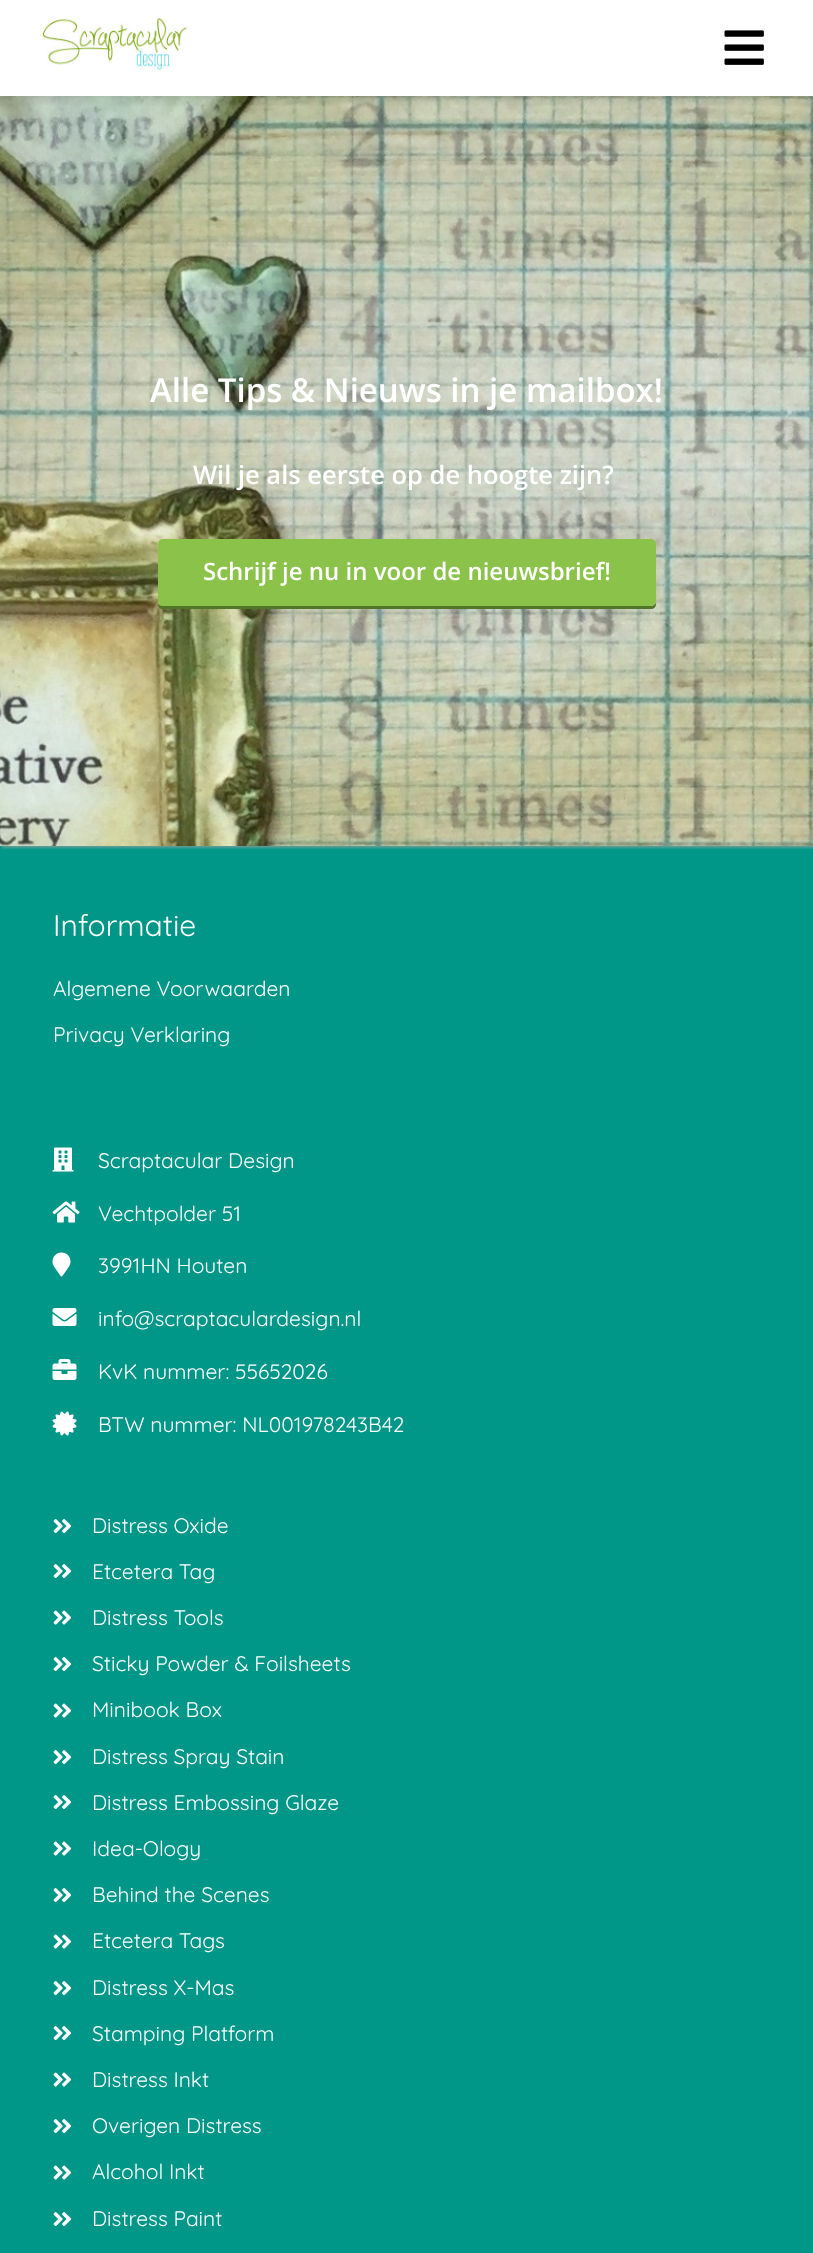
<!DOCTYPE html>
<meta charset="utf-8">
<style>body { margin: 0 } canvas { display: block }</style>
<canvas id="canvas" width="813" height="2253"></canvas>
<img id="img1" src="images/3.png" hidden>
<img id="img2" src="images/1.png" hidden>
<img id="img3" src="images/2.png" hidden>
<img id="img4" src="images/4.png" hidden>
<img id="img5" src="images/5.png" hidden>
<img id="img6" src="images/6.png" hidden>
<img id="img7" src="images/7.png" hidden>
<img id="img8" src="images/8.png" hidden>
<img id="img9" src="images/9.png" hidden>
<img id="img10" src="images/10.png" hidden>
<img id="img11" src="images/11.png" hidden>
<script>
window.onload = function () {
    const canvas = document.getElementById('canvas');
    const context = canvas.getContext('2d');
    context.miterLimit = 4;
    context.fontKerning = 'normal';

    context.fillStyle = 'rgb(255, 255, 255)';
    context.fillRect(0, 0, 813, 2253);
    context.fillStyle = 'rgb(0, 150, 136)';
    context.fillRect(0, 846, 813, 1407);
    context.fillStyle = 'rgba(163, 163, 163, 0.57)';
    context.filter = 'blur(1px)';
    context.beginPath();
    context.rect(2, 98, 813, 750);
    context.fill();
    context.filter = 'none';
    context.drawImage(document.getElementById('img1'), 0, 96, 813, 750);
    context.save();
    context.beginPath();
    context.rect(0, 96, 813, 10);
    context.clip();
    context.fillStyle = 'rgba(0, 0, 0, 0.2)';
    context.filter = 'blur(7.5px)';
    context.beginPath();
    context.rect(0, 0, 813, 96);
    context.fill();
    context.filter = 'none';
    context.restore();
    context.drawImage(document.getElementById('img2'), 42, 16, 147, 56);
    context.drawImage(document.getElementById('img3'), 724, 30, 40, 35);
    context.fillStyle = 'rgb(81, 118, 39)';
    context.beginPath();
    context.moveTo(158, 604);
    context.bezierCurveTo(158, 607, 160, 609, 163, 609);
    context.lineTo(651, 609);
    context.bezierCurveTo(654, 609, 656, 607, 656, 604);
    context.lineTo(656, 547);
    context.lineTo(656, 545);
    context.lineTo(656, 602);
    context.bezierCurveTo(656, 604, 653, 606, 651, 606);
    context.lineTo(162, 606);
    context.bezierCurveTo(160, 606, 159, 605, 158, 604);
    context.closePath();
    context.fill();
    context.fillStyle = 'rgb(139, 195, 74)';
    context.beginPath();
    context.roundRect(158, 539, 498, 67, 5);
    context.fill();
    context.drawImage(document.getElementById('img4'), 52, 1147, 22, 25);
    context.drawImage(document.getElementById('img5'), 52, 1201, 28, 22);
    context.drawImage(document.getElementById('img6'), 52, 1252, 19, 25);
    context.drawImage(document.getElementById('img7'), 52, 1308, 25, 18);
    context.drawImage(document.getElementById('img8'), 52, 1359, 25, 21);
    context.drawImage(document.getElementById('img9'), 52, 1411, 25, 25);
    context.drawImage(document.getElementById('img10'), 53, 1519, 19, 15);
    context.drawImage(document.getElementById('img10'), 53, 1564, 19, 15);
    context.drawImage(document.getElementById('img11'), 53, 1610, 19, 15);
    context.drawImage(document.getElementById('img10'), 53, 1657, 19, 15);
    context.drawImage(document.getElementById('img11'), 53, 1703, 19, 15);
    context.drawImage(document.getElementById('img10'), 53, 1750, 19, 15);
    context.drawImage(document.getElementById('img10'), 53, 1795, 19, 15);
    context.drawImage(document.getElementById('img11'), 53, 1841, 19, 15);
    context.drawImage(document.getElementById('img10'), 53, 1888, 19, 15);
    context.drawImage(document.getElementById('img11'), 53, 1934, 19, 15);
    context.drawImage(document.getElementById('img10'), 53, 1981, 19, 15);
    context.drawImage(document.getElementById('img10'), 53, 2026, 19, 15);
    context.drawImage(document.getElementById('img11'), 53, 2072, 19, 15);
    context.drawImage(document.getElementById('img10'), 53, 2119, 19, 15);
    context.drawImage(document.getElementById('img11'), 53, 2165, 19, 15);
    context.drawImage(document.getElementById('img10'), 53, 2212, 19, 15);
    context.font = '600 33px Open Sans';
    context.fillStyle = 'rgb(255, 255, 255)';
    context.fillText('Alle Tips & Nieuws in je mailbox!', 150, 402);
    context.font = '600 25.5px Open Sans';
    context.fillText('Wil je als eerste op de hoogte zijn?', 193, 484);
    context.font = '600 24px Open Sans';
    context.fillText('Schrijf je nu in voor de nieuwsbrief!', 203, 580);
    context.font = '30px Quicksand';
    context.fillText('Informatie', 53, 936);
    context.font = '21px Quicksand';
    context.fillText('Algemene Voorwaarden', 53, 996);
    context.fillText('Privacy Verklaring', 53, 1042);
    context.fillText('Scraptacular Design', 98, 1168);
    context.fillText('Vechtpolder 51', 98, 1221);
    context.fillText('3991HN Houten', 98, 1273);
    context.fillText('info@scraptaculardesign.nl', 98, 1326);
    context.fillText('KvK nummer: 55652026', 98, 1379);
    context.fillText('BTW nummer: NL001978243B42', 98, 1432);
    context.fillText('Distress Oxide', 92, 1533);
    context.fillText('Etcetera Tag', 92, 1579);
    context.fillText('Distress Tools', 92, 1625);
    context.fillText('Sticky Powder & Foilsheets', 92, 1671);
    context.fillText('Minibook Box', 92, 1717);
    context.fillText('Distress Spray Stain', 92, 1764);
    context.fillText('Distress Embossing Glaze', 92, 1810);
    context.fillText('Idea-Ology', 92, 1856);
    context.fillText('Behind the Scenes', 92, 1902);
    context.fillText('Etcetera Tags', 92, 1948);
    context.fillText('Distress X-Mas', 92, 1995);
    context.fillText('Stamping Platform', 92, 2041);
    context.fillText('Distress Inkt', 92, 2087);
    context.fillText('Overigen Distress', 92, 2133);
    context.fillText('Alcohol Inkt', 92, 2179);
    context.fillText('Distress Paint', 92, 2226);
};
</script>
